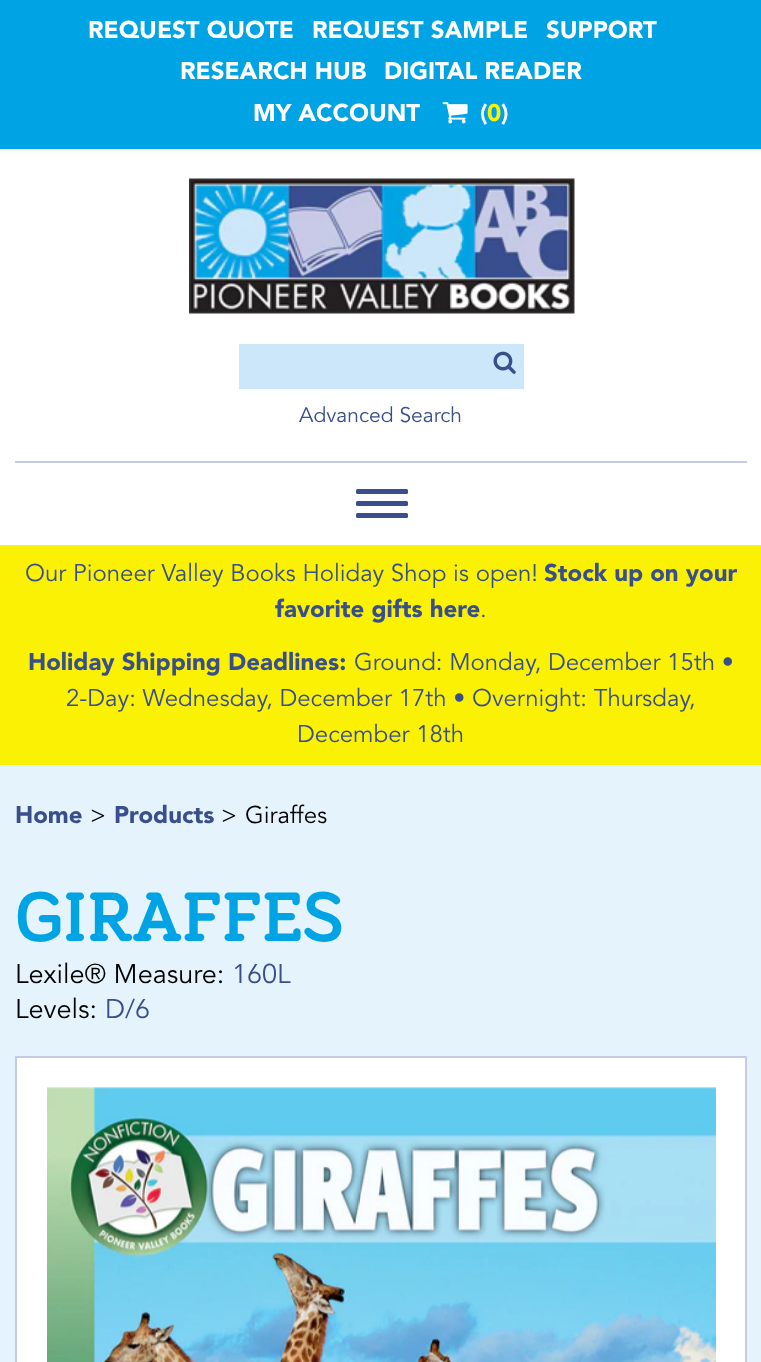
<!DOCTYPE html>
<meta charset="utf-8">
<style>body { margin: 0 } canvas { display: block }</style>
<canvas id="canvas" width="761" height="1362"></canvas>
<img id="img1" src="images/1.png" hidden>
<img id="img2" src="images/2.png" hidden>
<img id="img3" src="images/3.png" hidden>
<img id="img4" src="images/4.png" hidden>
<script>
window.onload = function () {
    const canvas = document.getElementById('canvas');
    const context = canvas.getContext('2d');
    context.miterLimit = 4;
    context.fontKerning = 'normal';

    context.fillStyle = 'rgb(255, 255, 255)';
    context.fillRect(0, 0, 761, 1362);
    context.fillStyle = 'rgb(0, 164, 228)';
    context.fillRect(0, 0, 761, 149);
    context.drawImage(document.getElementById('img1'), 442, 102, 26, 22);
    context.drawImage(document.getElementById('img2'), 189, 178, 386, 136);
    context.fillStyle = 'rgb(198, 202, 231)';
    context.fillRect(15, 461, 732, 2);
    context.fillStyle = 'rgb(204, 231, 249)';
    context.fillRect(239, 344, 285, 45);
    context.drawImage(document.getElementById('img3'), 493, 351, 23, 23);
    context.fillStyle = 'rgb(56, 78, 141)';
    context.beginPath();
    context.roundRect(356, 489, 52, 5, 1.5);
    context.fill();
    context.beginPath();
    context.roundRect(356, 501, 52, 5, 1.5);
    context.fill();
    context.beginPath();
    context.roundRect(356, 513, 52, 5, 1.5);
    context.fill();
    context.fillStyle = 'rgb(250, 241, 5)';
    context.fillRect(0, 545, 761, 220);
    context.fillStyle = 'rgb(229, 243, 252)';
    context.fillRect(0, 765, 761, 597);
    context.fillStyle = 'rgb(255, 255, 255)';
    context.beginPath();
    context.rect(16, 1057, 730, 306);
    context.fill();
    context.strokeStyle = 'rgb(199, 202, 230)';
    context.lineWidth = 2;
    context.stroke();
    context.drawImage(document.getElementById('img4'), 47, 1087, 669, 275);
    context.font = '900 24px Avenir';
    context.fillText('REQUEST QUOTE', 88, 38);
    context.fillText('REQUEST SAMPLE', 312, 38);
    context.fillText('SUPPORT', 546, 38);
    context.fillText('RESEARCH HUB', 180, 79);
    context.fillText('DIGITAL READER', 384, 79);
    context.fillText('MY ACCOUNT', 253, 121);
    context.fillText('(', 480, 121);
    context.fillStyle = 'rgb(250, 241, 5)';
    context.fillText('0', 487, 121);
    context.fillStyle = 'rgb(255, 255, 255)';
    context.fillText(')', 501, 121);
    context.font = '21px Avenir';
    context.fillStyle = 'rgb(56, 78, 141)';
    context.fillText('Advanced Search', 299, 422);
    context.font = '24px Avenir';
    context.fillText('Our Pioneer Valley Books Holiday Shop is open!', 25, 581);
    context.font = '900 24px Avenir';
    context.fillText('Stock up on your', 544, 581);
    context.fillText('favorite gifts here', 275, 617);
    context.font = '24px Avenir';
    context.fillText('.', 480, 617);
    context.font = '900 24px Avenir';
    context.fillText('Holiday Shipping Deadlines:', 28, 670);
    context.font = '24px Avenir';
    context.fillText('Ground: Monday, December 15th •', 354, 670);
    context.fillText('2-Day: Wednesday, December 17th • Overnight: Thursday,', 66, 706);
    context.fillText('December 18th', 297, 742);
    context.font = '900 24px Avenir';
    context.fillText('Home', 15, 823);
    context.font = '24px Avenir';
    context.fillStyle = 'rgb(0, 0, 0)';
    context.fillText('>', 90, 823);
    context.font = '900 24px Avenir';
    context.fillStyle = 'rgb(56, 78, 141)';
    context.fillText('Products', 114, 823);
    context.font = '24px Avenir';
    context.fillStyle = 'rgb(0, 0, 0)';
    context.fillText('>', 221, 823);
    context.fillText('Giraffes', 245, 823);
    context.font = 'bold 72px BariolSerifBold';
    context.fillStyle = 'rgb(0, 164, 228)';
    context.fillText('GIRAFFES', 15, 941);
    context.font = '27px Avenir';
    context.fillStyle = 'rgb(0, 0, 0)';
    context.fillText('Lexile® Measure:', 15, 983);
    context.fillStyle = 'rgb(56, 78, 141)';
    context.fillText('160L', 232, 983);
    context.fillStyle = 'rgb(0, 0, 0)';
    context.fillText('Levels:', 15, 1018);
    context.fillStyle = 'rgb(56, 78, 141)';
    context.fillText('D/6', 105, 1018);
};
</script>
